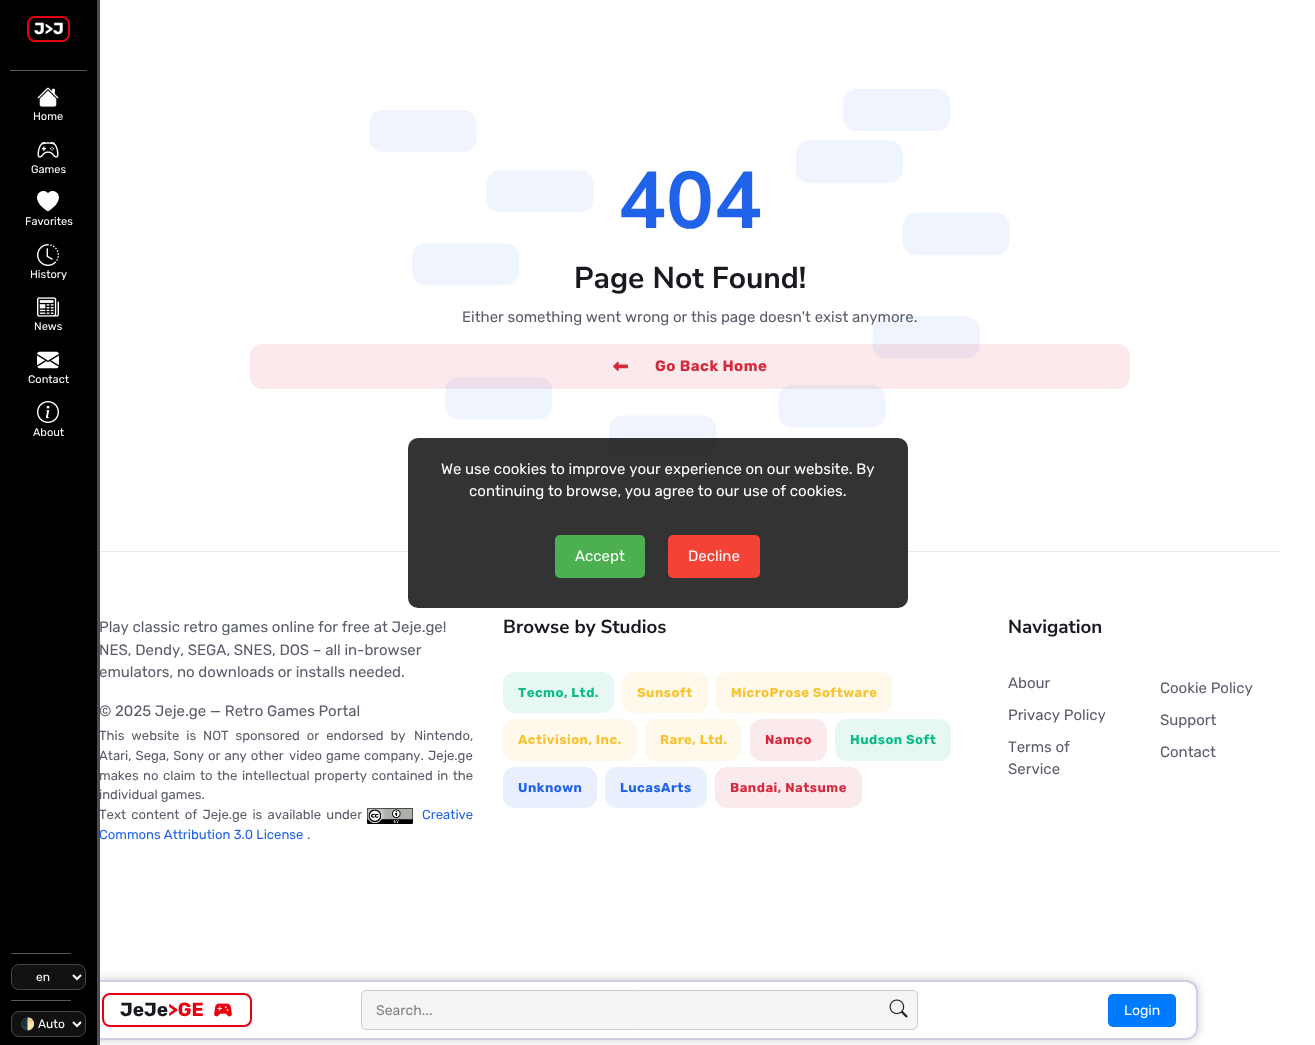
<!DOCTYPE html>
<meta charset="utf-8">
<style>body { margin: 0 } canvas { display: block }</style>
<canvas id="canvas" width="1315" height="1045"></canvas>
<img id="img1" src="images/1.png" hidden>
<img id="img2" src="images/2.png" hidden>
<img id="img3" src="images/3.png" hidden>
<img id="img4" src="images/4.png" hidden>
<img id="img5" src="images/5.png" hidden>
<img id="img6" src="images/6.png" hidden>
<img id="img7" src="images/7.png" hidden>
<img id="img8" src="images/8.png" hidden>
<img id="img9" src="images/9.png" hidden>
<img id="img10" src="images/10.png" hidden>
<img id="img11" src="images/11.png" hidden>
<script>
window.onload = function () {
    const canvas = document.getElementById('canvas');
    const context = canvas.getContext('2d');
    context.miterLimit = 4;
    context.fontKerning = 'none';

    context.fillStyle = 'rgb(255, 255, 255)';
    context.fillRect(0, 0, 1315, 1045);
    context.fillStyle = 'rgba(0, 0, 0, 0.2)';
    context.filter = 'blur(5px)';
    context.beginPath();
    context.roundRect(80, 980, 1118, 60, 12);
    context.fill();
    context.filter = 'none';
    context.fillStyle = 'rgb(255, 255, 255)';
    context.beginPath();
    context.roundRect(81, 981, 1116, 58, 11);
    context.fill();
    context.strokeStyle = 'rgb(208, 208, 226)';
    context.lineWidth = 2;
    context.stroke();
    context.fillStyle = 'rgb(0, 0, 0)';
    context.fillRect(0, 0, 97, 1045);
    context.beginPath();
    context.roundRect(28, 17, 41, 24, 7);
    context.strokeStyle = 'rgb(230, 0, 18)';
    context.stroke();
    context.fillStyle = 'rgb(90, 90, 90)';
    context.fillRect(10, 70, 77, 1);
    context.drawImage(document.getElementById('img1'), 37, 87, 22, 20);
    context.drawImage(document.getElementById('img2'), 37, 141, 22, 17);
    context.fillStyle = 'rgb(255, 255, 255)';
    context.beginPath();
    context.moveTo(48, 193);
    context.bezierCurveTo(54.5, 186, 69, 198, 48, 211.5);
    context.bezierCurveTo(27, 198, 41.5, 186, 48, 193);
    context.closePath();
    context.fill();
    context.drawImage(document.getElementById('img3'), 37, 244, 22, 22);
    context.drawImage(document.getElementById('img4'), 37, 297, 22, 20);
    context.drawImage(document.getElementById('img5'), 37, 351, 22, 18);
    context.drawImage(document.getElementById('img6'), 37, 401, 22, 22);
    context.fillStyle = 'rgb(90, 90, 90)';
    context.fillRect(11, 953, 60, 1);
    context.fillStyle = 'rgb(17, 17, 17)';
    context.beginPath();
    context.roundRect(11.5, 964.5, 74, 25, 7.5);
    context.fill();
    context.strokeStyle = 'rgb(68, 68, 68)';
    context.lineWidth = 1;
    context.stroke();
    context.beginPath();
    context.moveTo(73, 975);
    context.lineTo(77, 979);
    context.lineTo(81, 975);
    context.strokeStyle = 'rgb(255, 255, 255)';
    context.lineWidth = 2;
    context.stroke();
    context.fillStyle = 'rgb(90, 90, 90)';
    context.fillRect(11, 1000, 60, 1);
    context.fillStyle = 'rgb(17, 17, 17)';
    context.beginPath();
    context.roundRect(11.5, 1011.5, 74, 25, 7.5);
    context.fill();
    context.strokeStyle = 'rgb(68, 68, 68)';
    context.lineWidth = 1;
    context.stroke();
    context.beginPath();
    context.moveTo(73, 1022);
    context.lineTo(77, 1026);
    context.lineTo(81, 1022);
    context.strokeStyle = 'rgb(255, 255, 255)';
    context.lineWidth = 2;
    context.stroke();
    context.drawImage(document.getElementById('img7'), 369, 89, 641, 369);
    context.fillStyle = 'rgba(214, 41, 62, 0.1)';
    context.beginPath();
    context.roundRect(250, 344, 880, 45, 12);
    context.fill();
    context.drawImage(document.getElementById('img8'), 613, 361, 15, 10);
    context.fillStyle = 'rgb(232, 232, 233)';
    context.fillRect(99, 551, 1182, 1);
    context.drawImage(document.getElementById('img9'), 367, 808, 46, 16);
    context.fillStyle = 'rgb(231, 248, 243)';
    context.beginPath();
    context.roundRect(503, 672, 111, 41, 12);
    context.fill();
    context.fillStyle = 'rgb(254, 249, 234)';
    context.beginPath();
    context.roundRect(622, 672, 86, 41, 12);
    context.fill();
    context.beginPath();
    context.roundRect(716, 672, 176, 41, 12);
    context.fill();
    context.beginPath();
    context.roundRect(503, 719, 134, 42, 12);
    context.fill();
    context.beginPath();
    context.roundRect(645, 719, 97, 42, 12);
    context.fill();
    context.fillStyle = 'rgb(251, 234, 236)';
    context.beginPath();
    context.roundRect(750, 719, 77, 42, 12);
    context.fill();
    context.fillStyle = 'rgb(231, 248, 243)';
    context.beginPath();
    context.roundRect(835, 719, 116, 42, 12);
    context.fill();
    context.fillStyle = 'rgb(233, 239, 253)';
    context.beginPath();
    context.roundRect(503, 767, 94, 41, 12);
    context.fill();
    context.beginPath();
    context.roundRect(605, 767, 102, 41, 12);
    context.fill();
    context.fillStyle = 'rgb(251, 234, 236)';
    context.beginPath();
    context.roundRect(715, 767, 147, 41, 12);
    context.fill();
    context.beginPath();
    context.roundRect(103, 994, 148, 32, 7);
    context.strokeStyle = 'rgb(230, 0, 18)';
    context.stroke();
    context.drawImage(document.getElementById('img10'), 214, 1003, 18, 14);
    context.fillStyle = 'rgb(245, 245, 245)';
    context.beginPath();
    context.roundRect(361.5, 990.5, 556, 39, 4.5);
    context.fill();
    context.strokeStyle = 'rgb(204, 204, 204)';
    context.lineWidth = 1;
    context.stroke();
    context.drawImage(document.getElementById('img11'), 889, 999, 19, 19);
    context.fillStyle = 'rgb(0, 123, 255)';
    context.beginPath();
    context.roundRect(1108, 994, 68, 33, 5);
    context.fill();
    context.fillStyle = 'rgba(0, 0, 0, 0.8)';
    context.beginPath();
    context.roundRect(408, 438, 500, 170, 10);
    context.fill();
    context.fillStyle = 'rgb(76, 175, 80)';
    context.beginPath();
    context.roundRect(555, 535, 90, 43, 5);
    context.fill();
    context.fillStyle = 'rgb(244, 67, 54)';
    context.beginPath();
    context.roundRect(668, 535, 92, 43, 5);
    context.fill();
    context.font = 'bold 16px Rubik';
    context.fillStyle = 'rgb(255, 255, 255)';
    context.fillText('J>J', 34, 34);
    context.font = '11px Rubik';
    context.fillText('Home', 33, 120);
    context.fillText('Games', 31, 173);
    context.fillText('Favorites', 25, 225);
    context.fillText('History', 30, 278);
    context.fillText('News', 34, 330);
    context.fillText('Contact', 28, 383);
    context.fillText('About', 33, 436);
    context.font = '12px Rubik';
    context.fillText('en', 36, 981);
    context.font = '12px Noto Color Emoji';
    context.fillText('🌓', 20, 1028);
    context.font = '12px Rubik';
    context.fillText('Auto', 38, 1028);
    context.font = 'bold 80px Nunito Sans';
    context.fillStyle = 'rgb(33, 99, 232)';
    context.fillText('404', 618, 228);
    context.font = 'bold 30px Nunito Sans';
    context.fillStyle = 'rgb(25, 26, 31)';
    context.fillText('Page Not Found!', 574, 288);
    context.font = '15px Rubik';
    context.fillStyle = 'rgb(89, 93, 105)';
    context.fillText('Either something went wrong or this page doesn\'t exist anymore.', 462, 322);
    context.letterSpacing = '0.5px';
    context.font = 'bold 15px Rubik';
    context.fillStyle = 'rgb(214, 41, 62)';
    context.fillText('Go Back Home', 655, 371);
    context.letterSpacing = '0px';
    context.font = '15px Rubik';
    context.fillStyle = 'rgb(89, 93, 105)';
    context.fillText('Play classic retro games online for free at Jeje.ge!', 99, 632);
    context.fillText('NES, Dendy, SEGA, SNES, DOS – all in-browser', 99, 655);
    context.fillText('emulators, no downloads or installs needed.', 99, 677);
    context.fillText('© 2025 Jeje.ge — Retro Games Portal', 99, 716);
    context.wordSpacing = '3.75px';
    context.font = '13.1px Rubik';
    context.fillText('This website is NOT sponsored or endorsed by', 99, 740);
    context.fillText('Nintendo,', 414, 740);
    context.wordSpacing = '0.75px';
    context.fillText('Atari, Sega, Sony or any other', 99, 760);
    context.fillText('video game company.', 289, 760);
    context.wordSpacing = '0px';
    context.fillText('Jeje.ge', 428, 760);
    context.wordSpacing = '1.25px';
    context.fillText('makes no claim to the intellectual property contained in the', 99, 780);
    context.wordSpacing = '0px';
    context.fillText('individual games.', 99, 799);
    context.wordSpacing = '2px';
    context.fillText('Text content of Jeje.ge is available under', 99, 819);
    context.wordSpacing = '0px';
    context.fillStyle = 'rgb(33, 99, 232)';
    context.fillText('Creative', 422, 819);
    context.fillText('Commons Attribution 3.0 License', 99, 839);
    context.fillStyle = 'rgb(77, 77, 77)';
    context.fillRect(97, 0, 3, 1045);
    context.fillStyle = 'rgb(89, 93, 105)';
    context.fillText('.', 307, 839);
    context.font = 'bold 18.75px Nunito Sans';
    context.fillStyle = 'rgb(25, 26, 31)';
    context.fillText('Browse by Studios', 503, 633);
    context.letterSpacing = '0.5px';
    context.font = 'bold 13px Rubik';
    context.fillStyle = 'rgb(12, 188, 135)';
    context.fillText('Tecmo, Ltd.', 518, 697);
    context.fillStyle = 'rgb(247, 195, 46)';
    context.fillText('Sunsoft', 637, 697);
    context.fillText('MicroProse Software', 731, 697);
    context.fillText('Activision, Inc.', 518, 744);
    context.fillText('Rare, Ltd.', 660, 744);
    context.fillStyle = 'rgb(214, 41, 62)';
    context.fillText('Namco', 765, 744);
    context.fillStyle = 'rgb(12, 188, 135)';
    context.fillText('Hudson Soft', 850, 744);
    context.fillStyle = 'rgb(33, 99, 232)';
    context.fillText('Unknown', 518, 792);
    context.fillText('LucasArts', 620, 792);
    context.fillStyle = 'rgb(214, 41, 62)';
    context.fillText('Bandai, Natsume', 730, 792);
    context.letterSpacing = '0px';
    context.font = 'bold 18.75px Nunito Sans';
    context.fillStyle = 'rgb(25, 26, 31)';
    context.fillText('Navigation', 1008, 633);
    context.font = '15px Rubik';
    context.fillStyle = 'rgb(89, 93, 105)';
    context.fillText('Abour', 1008, 688);
    context.fillText('Privacy Policy', 1008, 720);
    context.fillText('Terms of', 1008, 752);
    context.fillText('Service', 1008, 774);
    context.fillText('Cookie Policy', 1160, 693);
    context.fillText('Support', 1160, 725);
    context.fillText('Contact', 1160, 757);
    context.font = 'bold 19px Rubik';
    context.fillStyle = 'rgb(25, 26, 31)';
    context.fillText('JeJe', 120, 1016);
    context.fillStyle = 'rgb(230, 0, 18)';
    context.fillText('>GE', 168, 1016);
    context.font = '14px Rubik';
    context.fillStyle = 'rgb(131, 131, 131)';
    context.fillText('Search...', 376, 1015);
    context.fillStyle = 'rgb(255, 255, 255)';
    context.fillText('Login', 1124, 1015);
    context.font = '15px Rubik';
    context.fillText('We use cookies to improve your experience on our website. By', 441, 474);
    context.fillText('continuing to browse, you agree to our use of cookies.', 469, 496);
    context.fillText('Accept', 575, 561);
    context.fillText('Decline', 688, 561);
};
</script>
